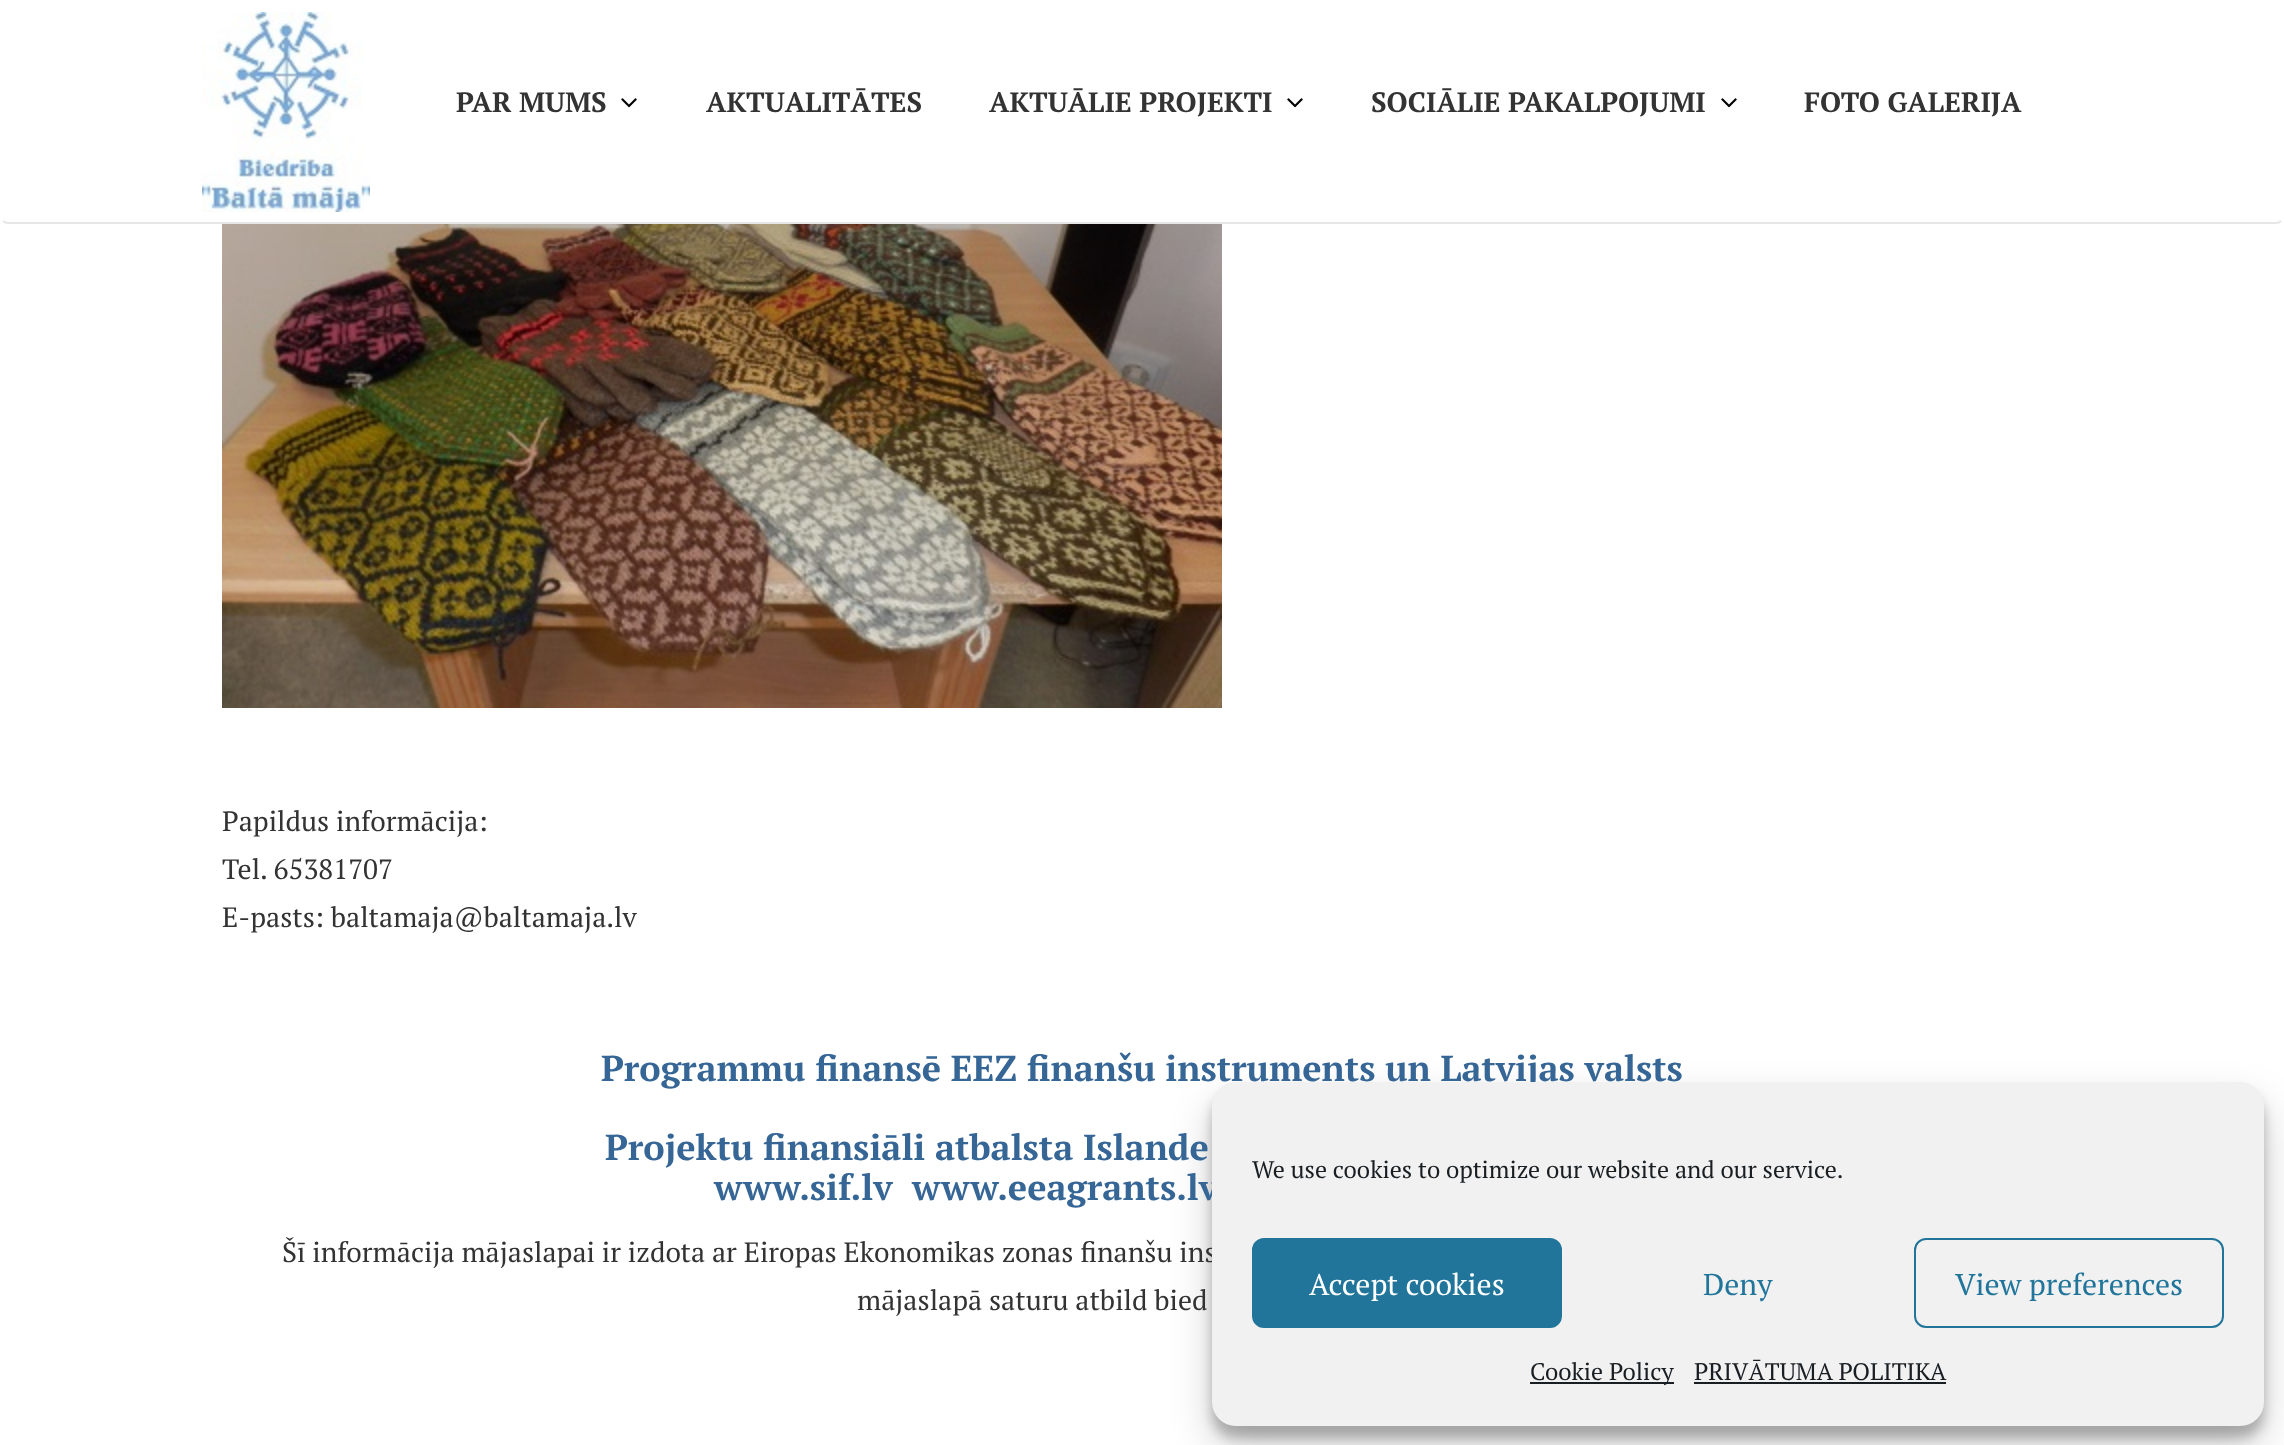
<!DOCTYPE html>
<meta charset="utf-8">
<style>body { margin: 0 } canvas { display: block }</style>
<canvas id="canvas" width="2284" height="1445"></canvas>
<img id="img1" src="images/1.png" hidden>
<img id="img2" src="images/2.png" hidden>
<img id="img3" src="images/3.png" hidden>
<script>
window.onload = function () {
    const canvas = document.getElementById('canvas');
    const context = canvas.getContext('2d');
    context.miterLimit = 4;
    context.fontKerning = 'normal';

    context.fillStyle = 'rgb(255, 255, 255)';
    context.fillRect(0, 0, 2284, 1445);
    context.beginPath();
    context.moveTo(2281, 221);
    context.bezierCurveTo(2279.5, 222.5, 2278, 223, 2276, 223);
    context.lineTo(8, 223);
    context.bezierCurveTo(6, 223, 4.5, 222.5, 3, 221);
    context.strokeStyle = 'rgb(230, 230, 230)';
    context.lineWidth = 2;
    context.stroke();
    context.drawImage(document.getElementById('img1'), 202, 12, 168, 200);
    context.drawImage(document.getElementById('img2'), 621, 98, 16, 10);
    context.drawImage(document.getElementById('img2'), 1287, 98, 16, 10);
    context.drawImage(document.getElementById('img2'), 1721, 98, 16, 10);
    context.drawImage(document.getElementById('img3'), 222, 224, 1000, 484);
    context.fillStyle = 'rgba(0, 0, 0, 0.23)';
    context.filter = 'blur(6px)';
    context.beginPath();
    context.roundRect(1212, 1094, 1052, 344, 24);
    context.fill();
    context.filter = 'none';
    context.fillStyle = 'rgba(0, 0, 0, 0.19)';
    context.filter = 'blur(20px)';
    context.beginPath();
    context.roundRect(1212, 1102, 1052, 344, 24);
    context.fill();
    context.filter = 'none';
    context.font = 'bold 28px PT Serif';
    context.fillStyle = 'rgb(51, 51, 51)';
    context.fillText('PAR MUMS', 456, 112);
    context.fillText('AKTUALITĀTES', 706, 112);
    context.fillText('AKTUĀLIE PROJEKTI', 989, 112);
    context.fillText('SOCIĀLIE PAKALPOJUMI', 1371, 112);
    context.fillText('FOTO GALERIJA', 1804, 112);
    context.font = '28px PT Serif';
    context.fillText('Papildus informācija:', 222, 831);
    context.fillText('Tel. 65381707', 222, 879);
    context.fillText('E-pasts: baltamaja@baltamaja.lv', 222, 927);
    context.font = 'bold 36px PT Serif';
    context.fillStyle = 'rgb(54, 102, 150)';
    context.fillText('Programmu finansē EEZ finanšu instruments un Latvijas valsts', 601, 1081);
    context.fillText('Projektu finansiāli atbalsta Islande', 605, 1160);
    context.fillText('www.sif.lv', 714, 1200);
    context.fillText('www.eeagrants.lv', 912, 1200);
    context.font = '28px PT Serif';
    context.fillStyle = 'rgb(51, 51, 51)';
    context.fillText('Šī informācija mājaslapai ir izdota ar Eiropas Ekonomikas zonas finanšu ins', 282, 1262);
    context.fillText('mājaslapā saturu atbild bied', 857, 1310);
    context.fillStyle = 'rgb(241, 241, 241)';
    context.beginPath();
    context.roundRect(1212, 1082, 1052, 344, 24);
    context.fill();
    context.font = '24px PT Serif';
    context.fillStyle = 'rgb(25, 30, 35)';
    context.fillText('We use cookies to optimize our website and our service.', 1252, 1178);
    context.fillStyle = 'rgb(33, 117, 155)';
    context.beginPath();
    context.roundRect(1253, 1239, 308, 88, 11);
    context.fill();
    context.strokeStyle = 'rgb(33, 117, 155)';
    context.stroke();
    context.font = '30px PT Serif';
    context.fillStyle = 'rgb(255, 255, 255)';
    context.fillText('Accept cookies', 1309, 1295);
    context.fillStyle = 'rgb(33, 117, 155)';
    context.fillText('Deny', 1703, 1295);
    context.beginPath();
    context.roundRect(1915, 1239, 308, 88, 11);
    context.stroke();
    context.fillText('View preferences', 1955, 1295);
    context.fillStyle = 'rgb(25, 30, 35)';
    context.fillRect(1530, 1382, 144, 2);
    context.font = '24px PT Serif';
    context.fillText('Cookie Policy', 1530, 1380);
    context.fillText('PRIVĀTUMA POLITIKA', 1694, 1380);
    context.fillRect(1694, 1382, 252, 2);
};
</script>
